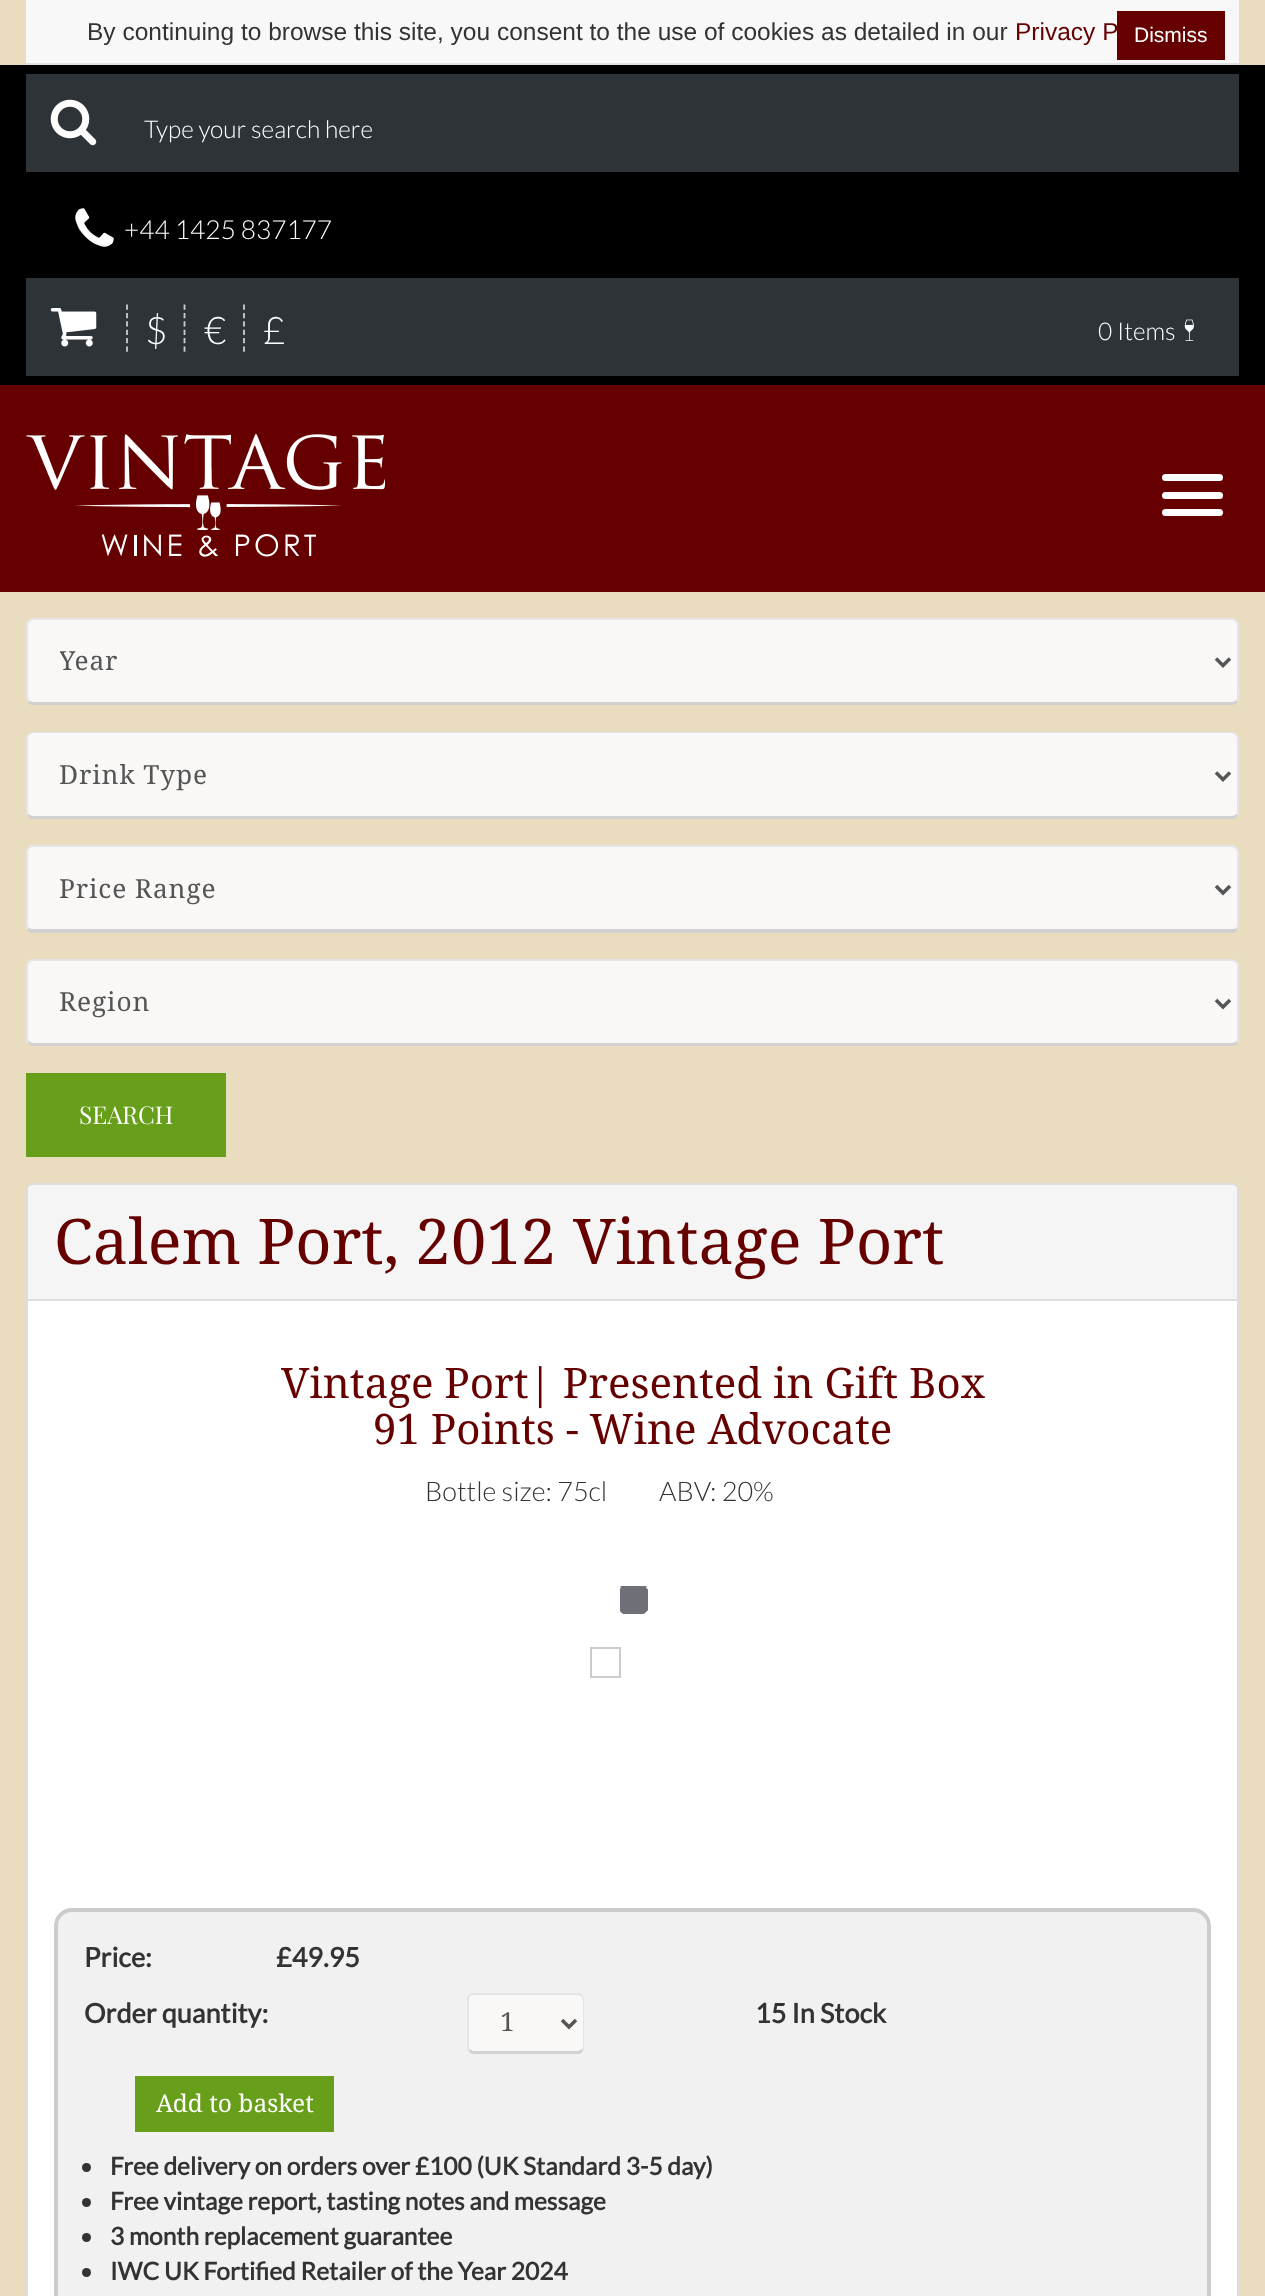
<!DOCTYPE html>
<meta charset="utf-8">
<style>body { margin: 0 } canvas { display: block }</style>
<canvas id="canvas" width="1265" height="2296"></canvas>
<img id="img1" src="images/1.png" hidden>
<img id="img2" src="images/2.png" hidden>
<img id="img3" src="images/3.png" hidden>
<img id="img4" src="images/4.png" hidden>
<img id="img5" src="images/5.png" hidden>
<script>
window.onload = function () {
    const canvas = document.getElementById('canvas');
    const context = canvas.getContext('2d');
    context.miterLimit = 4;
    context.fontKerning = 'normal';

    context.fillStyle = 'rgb(234, 220, 191)';
    context.fillRect(0, 0, 1265, 2296);
    context.fillStyle = 'rgb(248, 248, 248)';
    context.fillRect(26, 0, 1213, 63);
    context.fillStyle = 'rgb(224, 224, 224)';
    context.fillRect(26, 63, 1213, 2);
    context.fillStyle = 'rgb(102, 0, 0)';
    context.fillRect(1117, 11, 108, 49);
    context.fillStyle = 'rgb(0, 0, 0)';
    context.fillRect(0, 65, 1265, 320);
    context.fillStyle = 'rgb(46, 51, 56)';
    context.fillRect(26, 74, 1213, 98);
    context.drawImage(document.getElementById('img1'), 50, 99, 47, 47);
    context.drawImage(document.getElementById('img2'), 75, 208, 39, 39);
    context.fillRect(26, 278, 1213, 98);
    context.beginPath();
    context.moveTo(127, 304.5);
    context.lineTo(127, 352);
    context.strokeStyle = 'rgb(204, 204, 204)';
    context.lineWidth = 1.8;
    context.setLineDash([5.25, 3.15]);
    context.stroke();
    context.beginPath();
    context.moveTo(184.5, 304.5);
    context.lineTo(184.5, 352);
    context.stroke();
    context.beginPath();
    context.moveTo(244, 304.5);
    context.lineTo(244, 352);
    context.stroke();
    context.drawImage(document.getElementById('img3'), 50, 308, 47, 39);
    context.drawImage(document.getElementById('img4'), 1184, 319, 10, 22);
    context.fillStyle = 'rgb(102, 0, 0)';
    context.fillRect(0, 385, 1265, 207);
    context.drawImage(document.getElementById('img5'), 26, 434, 359, 123);
    context.fillStyle = 'rgb(255, 255, 255)';
    context.beginPath();
    context.roundRect(1162, 474, 61, 7, 3.5);
    context.fill();
    context.beginPath();
    context.roundRect(1162, 492, 61, 7, 3.5);
    context.fill();
    context.beginPath();
    context.roundRect(1162, 509, 61, 7, 3.5);
    context.fill();
    context.fillStyle = 'rgb(249, 248, 247)';
    context.beginPath();
    context.moveTo(33, 620);
    context.lineTo(1232, 620);
    context.bezierCurveTo(1235, 620, 1237, 622, 1237, 625);
    context.lineTo(1237, 698);
    context.bezierCurveTo(1237, 700, 1235, 702, 1232, 702);
    context.lineTo(33, 702);
    context.bezierCurveTo(30, 702, 28, 700, 28, 698);
    context.lineTo(28, 625);
    context.bezierCurveTo(28, 622, 30, 620, 33, 620);
    context.closePath();
    context.fill();
    context.fillStyle = 'rgb(228, 229, 230)';
    context.beginPath();
    context.moveTo(33, 618);
    context.bezierCurveTo(31, 618, 29, 619, 28, 620);
    context.lineTo(30, 621);
    context.lineTo(33, 620);
    context.lineTo(1232, 620);
    context.bezierCurveTo(1233, 620, 1235, 620, 1235, 621);
    context.lineTo(1237, 620);
    context.bezierCurveTo(1236, 619, 1234, 618, 1232, 618);
    context.closePath();
    context.fill();
    context.beginPath();
    context.moveTo(1237, 620);
    context.lineTo(1239, 624);
    context.lineTo(1239, 686);
    context.bezierCurveTo(1239, 688, 1241, 698, 1238, 702);
    context.lineTo(1236, 700);
    context.bezierCurveTo(1239, 696, 1237, 691, 1237, 686);
    context.lineTo(1237, 624);
    context.lineTo(1235, 621);
    context.closePath();
    context.fill();
    context.fillStyle = 'rgb(209, 209, 209)';
    context.beginPath();
    context.moveTo(1238, 702);
    context.bezierCurveTo(1236, 704, 1234, 705, 1232, 705);
    context.lineTo(33, 705);
    context.bezierCurveTo(31, 705, 29, 704, 28, 703);
    context.lineTo(29, 700);
    context.bezierCurveTo(30, 701, 31, 702, 33, 702);
    context.lineTo(1232, 702);
    context.bezierCurveTo(1234, 702, 1236, 701, 1236, 700);
    context.closePath();
    context.fill();
    context.fillStyle = 'rgb(228, 229, 230)';
    context.beginPath();
    context.moveTo(26, 623);
    context.lineTo(28, 620);
    context.lineTo(30, 621);
    context.bezierCurveTo(29, 622, 28, 623, 28, 624);
    context.lineTo(28, 698);
    context.lineTo(29, 700);
    context.lineTo(28, 703);
    context.lineTo(26, 700);
    context.closePath();
    context.fill();
    context.beginPath();
    context.moveTo(1216, 658.5);
    context.lineTo(1223, 665.5);
    context.lineTo(1230, 658.5);
    context.strokeStyle = 'rgb(85, 85, 85)';
    context.lineWidth = 3.5;
    context.setLineDash([]);
    context.stroke();
    context.fillStyle = 'rgb(249, 248, 247)';
    context.beginPath();
    context.moveTo(33, 733);
    context.lineTo(1232, 733);
    context.bezierCurveTo(1235, 733, 1237, 736, 1237, 738);
    context.lineTo(1237, 812);
    context.bezierCurveTo(1237, 814, 1235, 816, 1232, 816);
    context.lineTo(33, 816);
    context.bezierCurveTo(30, 816, 28, 814, 28, 812);
    context.lineTo(28, 738);
    context.bezierCurveTo(28, 736, 30, 733, 33, 733);
    context.closePath();
    context.fill();
    context.fillStyle = 'rgb(228, 229, 230)';
    context.beginPath();
    context.moveTo(33, 732);
    context.bezierCurveTo(31, 732, 30, 733, 28, 734);
    context.lineTo(29, 735);
    context.bezierCurveTo(30, 734, 32, 733, 33, 733);
    context.lineTo(1232, 733);
    context.bezierCurveTo(1234, 733, 1235, 734, 1236, 735);
    context.lineTo(1237, 734);
    context.bezierCurveTo(1236, 733, 1234, 732, 1232, 732);
    context.closePath();
    context.fill();
    context.beginPath();
    context.moveTo(1237, 734);
    context.bezierCurveTo(1238, 735, 1239, 736, 1239, 738);
    context.lineTo(1239, 812);
    context.bezierCurveTo(1239, 814, 1238, 815, 1238, 816);
    context.lineTo(1236, 814);
    context.bezierCurveTo(1239, 810, 1237, 804, 1237, 800);
    context.lineTo(1237, 738);
    context.lineTo(1236, 735);
    context.closePath();
    context.fill();
    context.fillStyle = 'rgb(209, 209, 209)';
    context.beginPath();
    context.moveTo(33, 819);
    context.lineTo(1232, 819);
    context.bezierCurveTo(1234, 819, 1236, 818, 1238, 816);
    context.lineTo(1236, 814);
    context.bezierCurveTo(1236, 815, 1234, 816, 1232, 816);
    context.lineTo(33, 816);
    context.bezierCurveTo(31, 816, 30, 815, 29, 814);
    context.lineTo(28, 816);
    context.bezierCurveTo(29, 818, 31, 819, 33, 819);
    context.closePath();
    context.fill();
    context.fillStyle = 'rgb(228, 229, 230)';
    context.beginPath();
    context.moveTo(26, 736);
    context.lineTo(28, 734);
    context.lineTo(29, 735);
    context.lineTo(28, 738);
    context.lineTo(28, 812);
    context.lineTo(29, 814);
    context.lineTo(28, 816);
    context.lineTo(26, 814);
    context.closePath();
    context.fill();
    context.beginPath();
    context.moveTo(1216, 772.5);
    context.lineTo(1223, 779.5);
    context.lineTo(1230, 772.5);
    context.stroke();
    context.fillStyle = 'rgb(249, 248, 247)';
    context.beginPath();
    context.moveTo(33, 847);
    context.lineTo(1232, 847);
    context.bezierCurveTo(1235, 847, 1237, 849, 1237, 852);
    context.lineTo(1237, 926);
    context.bezierCurveTo(1237, 928, 1235, 929, 1232, 929);
    context.lineTo(33, 929);
    context.bezierCurveTo(30, 929, 28, 928, 28, 926);
    context.lineTo(28, 852);
    context.bezierCurveTo(28, 849, 30, 847, 33, 847);
    context.closePath();
    context.fill();
    context.fillStyle = 'rgb(228, 229, 230)';
    context.beginPath();
    context.moveTo(33, 847);
    context.bezierCurveTo(32, 847, 30, 848, 29, 848);
    context.lineTo(28, 847);
    context.lineTo(31, 845);
    context.lineTo(1234, 845);
    context.lineTo(1237, 847);
    context.lineTo(1236, 849);
    context.bezierCurveTo(1235, 848, 1234, 847, 1232, 847);
    context.closePath();
    context.fill();
    context.beginPath();
    context.moveTo(1239, 926);
    context.lineTo(1239, 852);
    context.bezierCurveTo(1239, 850, 1238, 848, 1237, 847);
    context.lineTo(1236, 849);
    context.lineTo(1237, 851);
    context.lineTo(1237, 926);
    context.lineTo(1236, 928);
    context.lineTo(1238, 930);
    context.closePath();
    context.fill();
    context.fillStyle = 'rgb(209, 209, 209)';
    context.beginPath();
    context.moveTo(31, 933);
    context.bezierCurveTo(30, 932, 28, 932, 27, 930);
    context.lineTo(29, 928);
    context.bezierCurveTo(30, 929, 31, 929, 33, 929);
    context.lineTo(1232, 929);
    context.bezierCurveTo(1234, 929, 1236, 929, 1236, 928);
    context.lineTo(1238, 930);
    context.bezierCurveTo(1237, 931, 1236, 932, 1234, 933);
    context.closePath();
    context.fill();
    context.fillStyle = 'rgb(228, 229, 230)';
    context.beginPath();
    context.moveTo(26, 850);
    context.lineTo(28, 847);
    context.lineTo(29, 848);
    context.lineTo(28, 851);
    context.lineTo(28, 926);
    context.lineTo(29, 928);
    context.lineTo(27, 930);
    context.lineTo(26, 928);
    context.closePath();
    context.fill();
    context.beginPath();
    context.moveTo(1216, 886);
    context.lineTo(1223, 893);
    context.lineTo(1230, 886);
    context.stroke();
    context.fillStyle = 'rgb(249, 248, 247)';
    context.beginPath();
    context.moveTo(33, 961);
    context.lineTo(1232, 961);
    context.bezierCurveTo(1235, 961, 1237, 963, 1237, 966);
    context.lineTo(1237, 1040);
    context.bezierCurveTo(1237, 1041, 1235, 1043, 1232, 1043);
    context.lineTo(33, 1043);
    context.bezierCurveTo(30, 1043, 28, 1041, 28, 1040);
    context.lineTo(28, 966);
    context.bezierCurveTo(28, 963, 30, 961, 33, 961);
    context.closePath();
    context.fill();
    context.fillStyle = 'rgb(228, 229, 230)';
    context.beginPath();
    context.moveTo(33, 959);
    context.bezierCurveTo(31, 959, 29, 960, 28, 961);
    context.lineTo(30, 962);
    context.bezierCurveTo(30, 961, 32, 961, 33, 961);
    context.lineTo(1232, 961);
    context.bezierCurveTo(1234, 961, 1235, 962, 1236, 962);
    context.lineTo(1237, 961);
    context.bezierCurveTo(1236, 960, 1234, 959, 1232, 959);
    context.closePath();
    context.fill();
    context.beginPath();
    context.moveTo(1239, 1040);
    context.lineTo(1239, 966);
    context.bezierCurveTo(1239, 964, 1238, 962, 1237, 961);
    context.lineTo(1236, 962);
    context.lineTo(1237, 965);
    context.lineTo(1237, 1040);
    context.lineTo(1236, 1041);
    context.lineTo(1238, 1044);
    context.bezierCurveTo(1238, 1043, 1239, 1041, 1239, 1040);
    context.closePath();
    context.fill();
    context.fillStyle = 'rgb(209, 209, 209)';
    context.beginPath();
    context.moveTo(1238, 1044);
    context.bezierCurveTo(1236, 1045, 1234, 1046, 1232, 1046);
    context.lineTo(33, 1046);
    context.bezierCurveTo(31, 1046, 29, 1045, 28, 1044);
    context.lineTo(29, 1041);
    context.bezierCurveTo(30, 1042, 31, 1043, 33, 1043);
    context.lineTo(1232, 1043);
    context.bezierCurveTo(1234, 1043, 1236, 1042, 1236, 1041);
    context.closePath();
    context.fill();
    context.fillStyle = 'rgb(228, 229, 230)';
    context.beginPath();
    context.moveTo(26, 964);
    context.lineTo(28, 961);
    context.lineTo(30, 962);
    context.lineTo(28, 965);
    context.lineTo(28, 1040);
    context.lineTo(29, 1041);
    context.lineTo(28, 1044);
    context.lineTo(26, 1042);
    context.closePath();
    context.fill();
    context.beginPath();
    context.moveTo(1216, 1000);
    context.lineTo(1223, 1007);
    context.lineTo(1230, 1000);
    context.stroke();
    context.fillStyle = 'rgb(104, 159, 26)';
    context.fillRect(26, 1073, 200, 84);
    context.fillStyle = 'rgb(255, 255, 255)';
    context.beginPath();
    context.roundRect(27, 1184, 1211, 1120, 6);
    context.fill();
    context.strokeStyle = 'rgb(221, 221, 221)';
    context.lineWidth = 2;
    context.stroke();
    context.fillStyle = 'rgb(245, 245, 245)';
    context.beginPath();
    context.roundRect(28, 1185, 1209, 115, [5, 5, 0, 0]);
    context.fill();
    context.fillStyle = 'rgb(221, 221, 221)';
    context.fillRect(28, 1299, 1209, 2);
    context.save();
    context.beginPath();
    context.rect(620, 1586, 28, 28);
    context.clip();
    context.fillStyle = 'rgb(111, 112, 119)';
    context.beginPath();
    context.arc(633.5, 1599.5, 31.5, 0, 2 * Math.PI);
    context.fill();
    context.beginPath();
    context.moveTo(647, 1586);
    context.bezierCurveTo(650.5, 1589.5, 653, 1594.5, 653, 1599.5);
    context.bezierCurveTo(653, 1622.5, 619, 1626, 614.5, 1603.5);
    context.bezierCurveTo(613.5, 1597, 615.5, 1590.5, 620, 1586);
    context.strokeStyle = 'rgb(255, 255, 255)';
    context.lineWidth = 3.5;
    context.stroke();
    context.restore();
    context.strokeStyle = 'rgb(204, 204, 204)';
    context.strokeRect(591, 1648, 29, 29);
    context.fillStyle = 'rgb(241, 241, 241)';
    context.beginPath();
    context.roundRect(56, 1910, 1153, 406, 16);
    context.fill();
    context.lineWidth = 4;
    context.stroke();
    context.fillStyle = 'rgb(249, 248, 247)';
    context.beginPath();
    context.moveTo(474, 1995);
    context.lineTo(578, 1995);
    context.bezierCurveTo(580, 1995, 583, 1997, 583, 2000);
    context.lineTo(583, 2048);
    context.bezierCurveTo(583, 2049, 580, 2051, 578, 2051);
    context.lineTo(474, 2051);
    context.bezierCurveTo(471, 2051, 469, 2049, 469, 2048);
    context.lineTo(469, 2000);
    context.bezierCurveTo(469, 1997, 471, 1995, 474, 1995);
    context.closePath();
    context.fill();
    context.fillStyle = 'rgb(228, 229, 230)';
    context.beginPath();
    context.moveTo(474, 1995);
    context.bezierCurveTo(472, 1995, 471, 1996, 470, 1996);
    context.lineTo(469, 1995);
    context.lineTo(472, 1993);
    context.lineTo(580, 1993);
    context.lineTo(582, 1995);
    context.lineTo(581, 1996);
    context.lineTo(578, 1995);
    context.closePath();
    context.fill();
    context.beginPath();
    context.moveTo(582, 1995);
    context.bezierCurveTo(583, 1997, 584, 1998, 584, 2000);
    context.lineTo(584, 2048);
    context.bezierCurveTo(584, 2049, 584, 2050, 583, 2051);
    context.lineTo(582, 2049);
    context.lineTo(583, 2048);
    context.lineTo(583, 1999);
    context.lineTo(581, 1996);
    context.closePath();
    context.fill();
    context.fillStyle = 'rgb(209, 209, 209)';
    context.beginPath();
    context.moveTo(583, 2051);
    context.bezierCurveTo(582, 2053, 580, 2054, 578, 2054);
    context.lineTo(474, 2054);
    context.bezierCurveTo(472, 2054, 470, 2053, 469, 2052);
    context.lineTo(470, 2049);
    context.lineTo(473, 2051);
    context.lineTo(578, 2051);
    context.lineTo(582, 2049);
    context.closePath();
    context.fill();
    context.fillStyle = 'rgb(228, 229, 230)';
    context.beginPath();
    context.moveTo(467, 1998);
    context.lineTo(469, 1995);
    context.lineTo(470, 1996);
    context.lineTo(469, 1999);
    context.lineTo(469, 2048);
    context.lineTo(470, 2049);
    context.lineTo(469, 2052);
    context.lineTo(467, 2050);
    context.closePath();
    context.fill();
    context.beginPath();
    context.moveTo(562, 2020);
    context.lineTo(569, 2027);
    context.lineTo(576, 2020);
    context.strokeStyle = 'rgb(85, 85, 85)';
    context.lineWidth = 3.5;
    context.stroke();
    context.fillStyle = 'rgb(104, 159, 26)';
    context.fillRect(135, 2076, 199, 56);
    context.fillStyle = 'rgb(51, 51, 51)';
    context.beginPath();
    context.arc(86.5, 2167.5, 4.5, 0, 2 * Math.PI);
    context.fill();
    context.beginPath();
    context.arc(86.5, 2202.5, 4.5, 0, 2 * Math.PI);
    context.fill();
    context.beginPath();
    context.arc(86.5, 2237.5, 4.5, 0, 2 * Math.PI);
    context.fill();
    context.beginPath();
    context.arc(86.5, 2272.5, 4.5, 0, 2 * Math.PI);
    context.fill();
    context.font = '24.5px Liberation Sans';
    context.fillText('By continuing to browse this site, you consent to the use of cookies as detailed in our', 87, 40);
    context.fillStyle = 'rgb(102, 0, 0)';
    context.fillText('Privacy P', 1015, 40);
    context.font = '21px Liberation Sans';
    context.fillStyle = 'rgb(255, 255, 255)';
    context.fillText('Dismiss', 1134, 42);
    context.font = '300 24.5px Lato';
    context.fillText('Type your search here', 144, 138);
    context.font = '300 26.25px Lato';
    context.fillText('+44 1425 837177', 124, 239);
    context.font = '300 38px Lato';
    context.fillText('$', 145, 344);
    context.fillText('€', 204, 344);
    context.fillText('£', 263, 344);
    context.font = '300 24.5px Lato';
    context.fillText('0 Items', 1098, 340);
    context.save();
    context.beginPath();
    context.rect(60, 644, 1127, 35);
    context.clip();
    context.letterSpacing = '0.9px';
    context.font = '26.25px Droid Serif';
    context.fillStyle = 'rgb(85, 85, 85)';
    context.fillText('Year', 59, 670);
    context.restore();
    context.save();
    context.beginPath();
    context.rect(60, 758, 1127, 35);
    context.clip();
    context.letterSpacing = '0.9px';
    context.font = '26.25px Droid Serif';
    context.fillStyle = 'rgb(85, 85, 85)';
    context.fillText('Drink Type', 59, 784);
    context.restore();
    context.save();
    context.beginPath();
    context.rect(60, 872, 1127, 35);
    context.clip();
    context.letterSpacing = '0.9px';
    context.font = '26.25px Droid Serif';
    context.fillStyle = 'rgb(85, 85, 85)';
    context.fillText('Price Range', 59, 898);
    context.restore();
    context.save();
    context.beginPath();
    context.rect(60, 985, 1127, 35);
    context.clip();
    context.letterSpacing = '0.9px';
    context.font = '26.25px Droid Serif';
    context.fillStyle = 'rgb(85, 85, 85)';
    context.fillText('Region', 59, 1011);
    context.restore();
    context.font = '24.5px Playfair Display';
    context.fillText('SEARCH', 79, 1124);
    context.font = '63px Droid Serif';
    context.fillStyle = 'rgb(102, 0, 0)';
    context.fillText('Calem Port, 2012 Vintage Port', 54, 1264);
    context.font = '42px Droid Serif';
    context.fillText('Vintage Port| Presented in Gift Box', 281, 1398);
    context.fillText('91 Points - Wine Advocate', 373, 1444);
    context.font = '300 27px Lato';
    context.fillStyle = 'rgb(51, 51, 51)';
    context.fillText('Bottle size: 75cl', 425, 1501);
    context.fillText('ABV: 20%', 659, 1501);
    context.font = 'bold 27px Lato';
    context.fillText('Price:', 84, 1967);
    context.fillText('£49.95', 276, 1967);
    context.fillText('Order quantity:', 84, 2023);
    context.letterSpacing = '0.9px';
    context.font = '26.25px Droid Serif';
    context.fillStyle = 'rgb(85, 85, 85)';
    context.fillText('1', 500, 2031);
    context.letterSpacing = '0px';
    context.font = 'bold 27px Lato';
    context.fillStyle = 'rgb(51, 51, 51)';
    context.fillText('15 In Stock', 755, 2023);
    context.font = '24.5px Droid Serif';
    context.fillStyle = 'rgb(255, 255, 255)';
    context.fillText('Add to basket', 156, 2112);
    context.font = 'bold 24.5px Lato';
    context.fillStyle = 'rgb(51, 51, 51)';
    context.fillText('Free delivery on orders over £100 (UK Standard 3-5 day)', 110, 2175);
    context.fillText('Free vintage report, tasting notes and message', 110, 2210);
    context.fillText('3 month replacement guarantee', 110, 2245);
    context.fillText('IWC UK Fortified Retailer of the Year 2024', 110, 2280);
};
</script>
